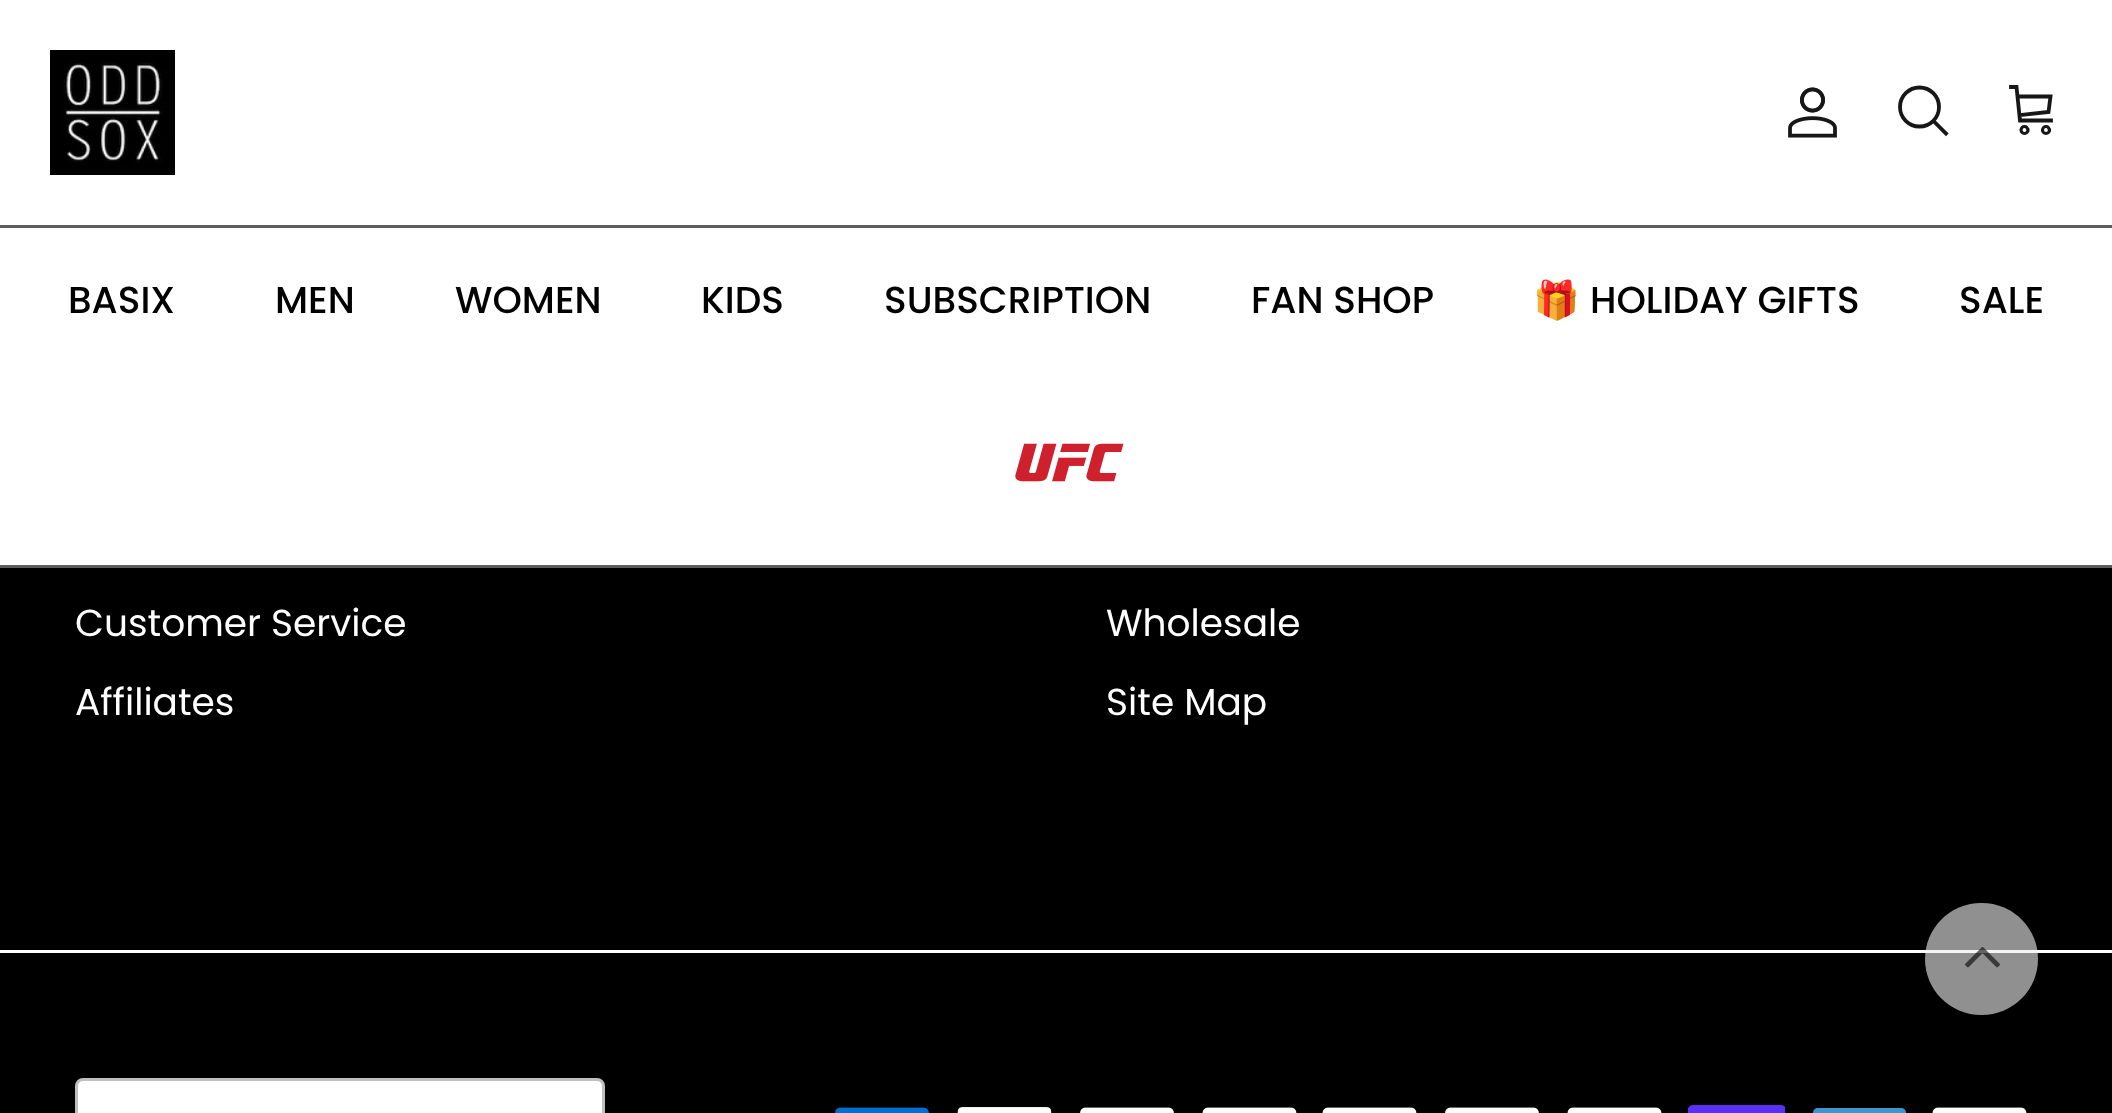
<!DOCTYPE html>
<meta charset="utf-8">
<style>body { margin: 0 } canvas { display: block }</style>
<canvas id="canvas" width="2112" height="1113"></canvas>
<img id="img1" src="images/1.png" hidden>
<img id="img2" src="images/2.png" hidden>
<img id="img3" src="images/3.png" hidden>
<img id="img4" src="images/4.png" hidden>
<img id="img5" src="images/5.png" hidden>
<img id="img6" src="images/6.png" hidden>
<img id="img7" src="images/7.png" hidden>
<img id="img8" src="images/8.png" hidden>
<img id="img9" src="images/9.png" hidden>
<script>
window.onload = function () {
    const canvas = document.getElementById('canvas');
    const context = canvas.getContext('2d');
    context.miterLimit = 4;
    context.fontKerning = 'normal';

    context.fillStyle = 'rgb(0, 0, 0)';
    context.fillRect(0, 0, 2112, 1113);
    context.fillStyle = 'rgb(255, 255, 255)';
    context.fillRect(0, 0, 2112, 225);
    context.fillStyle = 'rgb(92, 92, 92)';
    context.fillRect(0, 225, 2112, 3);
    context.drawImage(document.getElementById('img1'), 50, 50, 125, 125);
    context.drawImage(document.getElementById('img2'), 1788, 87, 49, 51);
    context.beginPath();
    context.arc(1919.5, 107, 19.5, 0, 2 * Math.PI);
    context.strokeStyle = 'rgb(23, 23, 23)';
    context.lineWidth = 3.8;
    context.stroke();
    context.beginPath();
    context.moveTo(1935, 122.5);
    context.lineTo(1946, 133.5);
    context.lineCap = 'square';
    context.stroke();
    context.beginPath();
    context.moveTo(2011, 87);
    context.lineTo(2016.5, 87);
    context.lineTo(2020, 120.5);
    context.lineTo(2051, 120.5);
    context.moveTo(2018, 96.5);
    context.lineTo(2050.5, 96.5);
    context.lineTo(2048.5, 112);
    context.lineTo(2021.5, 115);
    context.stroke();
    context.beginPath();
    context.arc(2024.5, 130, 3.5, 0, 2 * Math.PI);
    context.lineWidth = 3.1;
    context.stroke();
    context.beginPath();
    context.arc(2046, 130, 3.5, 0, 2 * Math.PI);
    context.stroke();
    context.fillRect(0, 565, 2112, 3);
    context.fillStyle = 'rgb(255, 255, 255)';
    context.fillRect(0, 228, 2112, 337);
    context.drawImage(document.getElementById('img3'), 1015, 443, 109, 39);
    context.fillRect(0, 950, 2112, 3);
    context.beginPath();
    context.roundRect(76.5, 1079.5, 527, 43, 6.5);
    context.fill();
    context.strokeStyle = 'rgb(191, 191, 191)';
    context.lineWidth = 3;
    context.stroke();
    context.drawImage(document.getElementById('img4'), 835, 1107, 94, 6);
    context.drawImage(document.getElementById('img5'), 957, 1107, 95, 6);
    context.drawImage(document.getElementById('img6'), 1080, 1107, 94, 6);
    context.drawImage(document.getElementById('img7'), 1202, 1107, 95, 6);
    context.drawImage(document.getElementById('img7'), 1322, 1107, 95, 6);
    context.drawImage(document.getElementById('img6'), 1445, 1107, 94, 6);
    context.drawImage(document.getElementById('img7'), 1567, 1107, 95, 6);
    context.drawImage(document.getElementById('img8'), 1688, 1105, 97, 8);
    context.fillStyle = 'rgb(61, 149, 206)';
    context.beginPath();
    context.moveTo(1901, 1108);
    context.bezierCurveTo(1904, 1108, 1906, 1110, 1906, 1113);
    context.lineTo(1906, 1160);
    context.bezierCurveTo(1906, 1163, 1904, 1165, 1901, 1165);
    context.lineTo(1818, 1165);
    context.bezierCurveTo(1815, 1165, 1813, 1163, 1813, 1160);
    context.lineTo(1813, 1113);
    context.bezierCurveTo(1813, 1110, 1815, 1108, 1818, 1108);
    context.lineTo(1901, 1108);
    context.fill('evenodd');
    context.drawImage(document.getElementById('img7'), 1932, 1107, 95, 6);
    context.fillStyle = 'rgba(240, 240, 240, 0.6)';
    context.beginPath();
    context.roundRect(1925, 903, 113, 112, 56);
    context.fill();
    context.drawImage(document.getElementById('img9'), 1965, 947, 35, 21);
    context.font = '500 37.5px Poppins';
    context.fillStyle = 'rgb(0, 0, 0)';
    context.fillText('BASIX', 68, 313);
    context.fillText('MEN', 275, 313);
    context.fillText('WOMEN', 455, 313);
    context.fillText('KIDS', 701, 313);
    context.fillText('SUBSCRIPTION', 884, 313);
    context.fillText('FAN SHOP', 1251, 313);
    context.font = '37.5px Noto Color Emoji';
    context.fillText('🎁', 1533, 313);
    context.font = '500 37.5px Poppins';
    context.fillText('HOLIDAY GIFTS', 1590, 313);
    context.fillText('SALE', 1959, 313);
    context.font = '37.5px Poppins';
    context.fillStyle = 'rgb(255, 255, 255)';
    context.fillText('Customer Service', 75, 636);
    context.fillText('Affiliates', 75, 715);
    context.fillText('Wholesale', 1106, 636);
    context.fillText('Site Map', 1106, 715);
};
</script>
